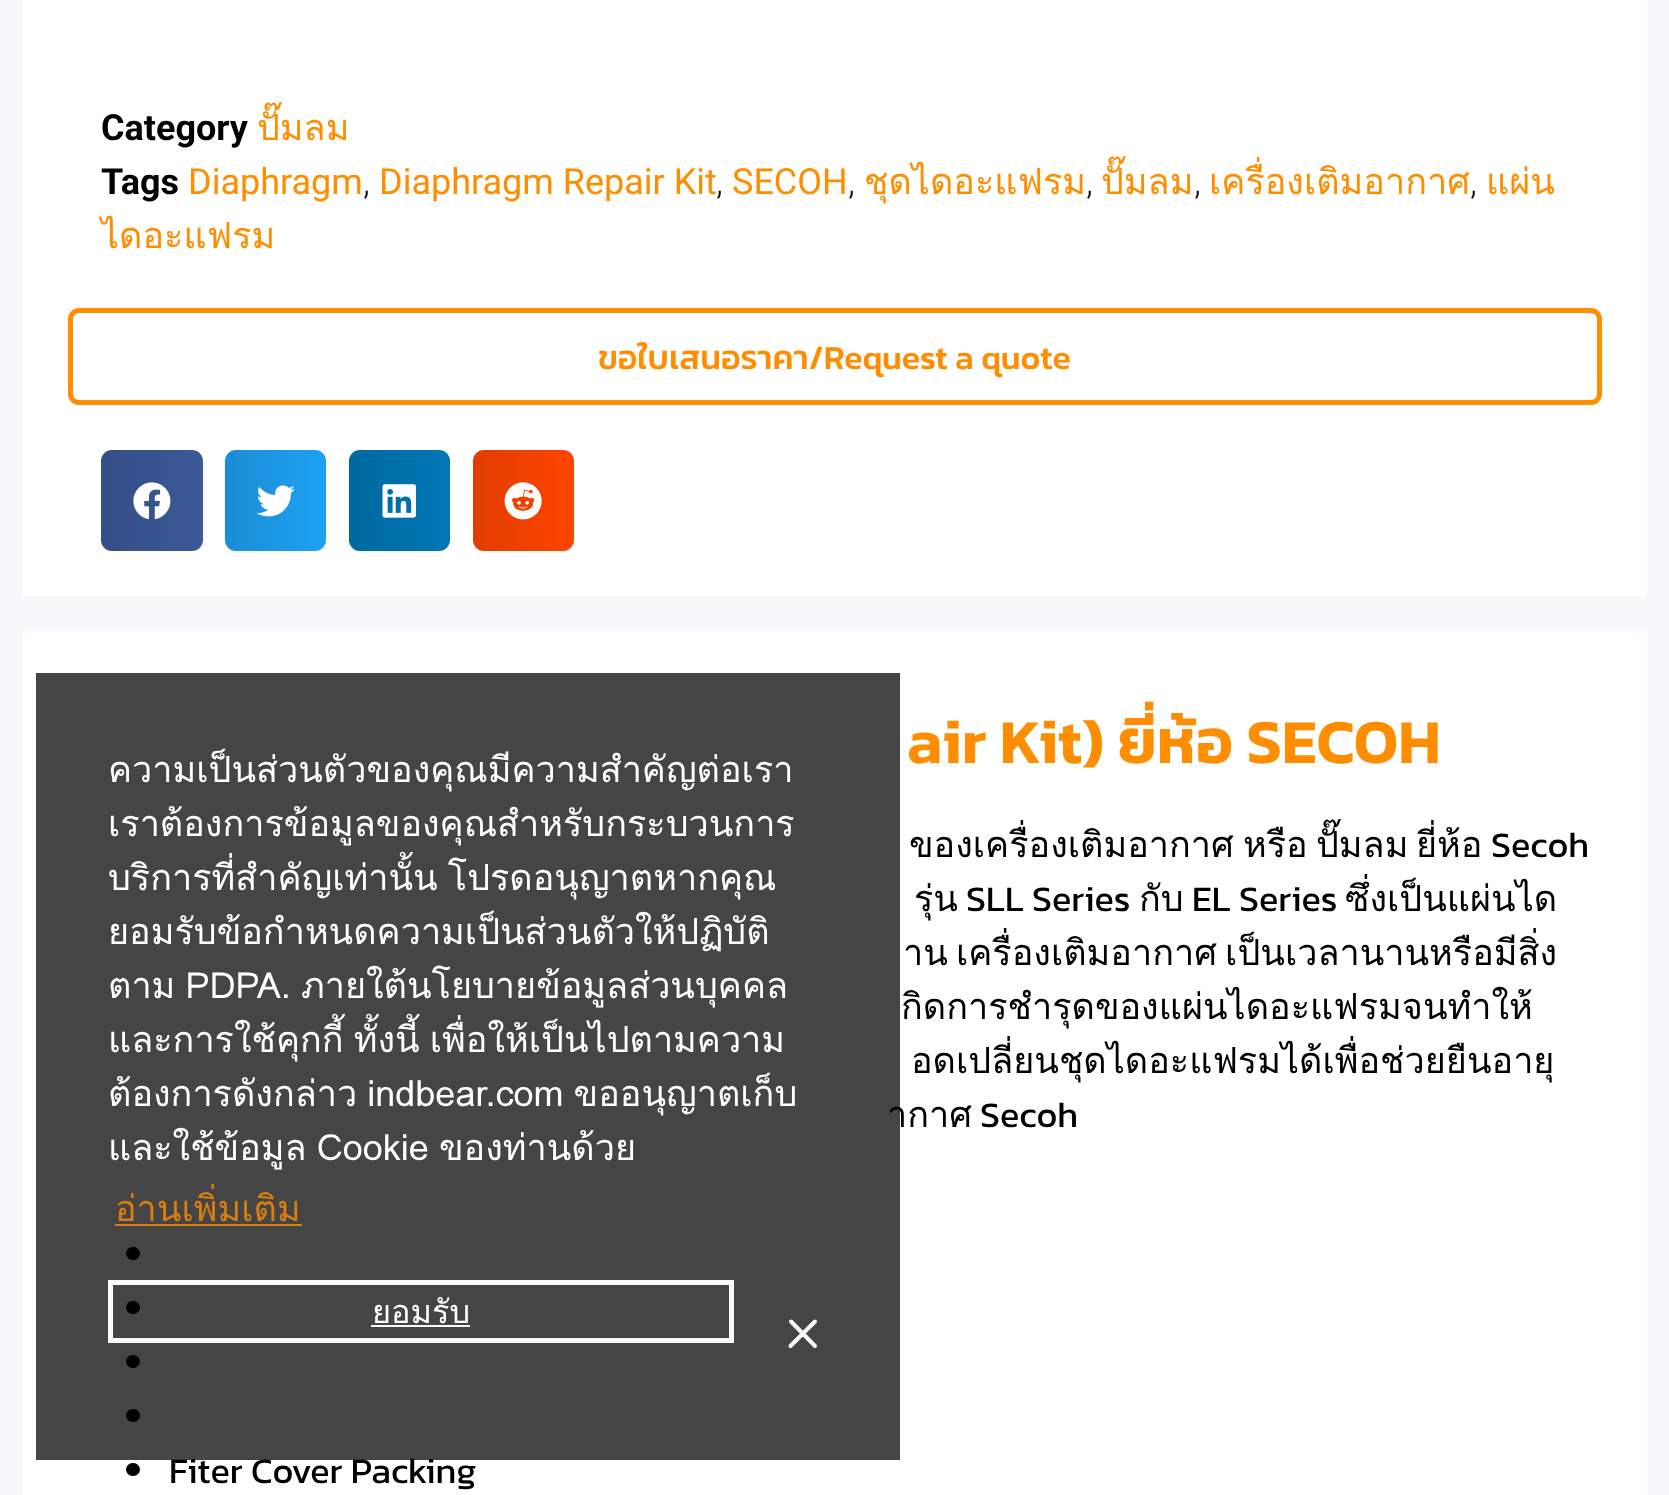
<!DOCTYPE html>
<meta charset="utf-8">
<style>body { margin: 0 } canvas { display: block }</style>
<canvas id="canvas" width="1669" height="1495"></canvas>
<img id="img1" src="images/1.png" hidden>
<img id="img2" src="images/2.png" hidden>
<img id="img3" src="images/3.png" hidden>
<img id="img4" src="images/4.png" hidden>
<script>
window.onload = function () {
    const canvas = document.getElementById('canvas');
    const context = canvas.getContext('2d');
    context.miterLimit = 4;
    context.fontKerning = 'normal';
    let gradient;

    context.fillStyle = 'rgb(247, 248, 252)';
    context.fillRect(0, 0, 1669, 1495);
    context.fillStyle = 'rgb(255, 255, 255)';
    context.fillRect(23, 0, 1624, 596);
    context.beginPath();
    context.roundRect(70.5, 310.5, 1529, 92, 8.5);
    context.strokeStyle = 'rgb(255, 141, 0)';
    context.lineWidth = 5;
    context.stroke();
    context.fillStyle = 'rgb(59, 89, 152)';
    context.beginPath();
    context.roundRect(101, 450, 102, 101, 11);
    context.fill();
    gradient = context.createLinearGradient(101, 501, 203, 501);
    gradient.addColorStop(0, 'rgba(0, 0, 0, 0.12)');
    gradient.addColorStop(1, 'rgba(0, 0, 0, 0)');
    context.fillStyle = gradient;
    context.beginPath();
    context.roundRect(101, 450, 102, 101, 11);
    context.fill();
    context.drawImage(document.getElementById('img1'), 133, 482, 38, 38);
    context.fillStyle = 'rgb(29, 161, 242)';
    context.beginPath();
    context.roundRect(225, 450, 101, 101, 11);
    context.fill();
    gradient = context.createLinearGradient(225, 501, 326, 501);
    gradient.addColorStop(0, 'rgba(0, 0, 0, 0.12)');
    gradient.addColorStop(1, 'rgba(0, 0, 0, 0)');
    context.fillStyle = gradient;
    context.beginPath();
    context.roundRect(225, 450, 101, 101, 11);
    context.fill();
    context.drawImage(document.getElementById('img2'), 256, 485, 39, 32);
    context.fillStyle = 'rgb(0, 119, 181)';
    context.beginPath();
    context.roundRect(349, 450, 101, 101, 11);
    context.fill();
    gradient = context.createLinearGradient(349, 501, 450, 501);
    gradient.addColorStop(0, 'rgba(0, 0, 0, 0.12)');
    gradient.addColorStop(1, 'rgba(0, 0, 0, 0)');
    context.fillStyle = gradient;
    context.beginPath();
    context.roundRect(349, 450, 101, 101, 11);
    context.fill();
    context.drawImage(document.getElementById('img3'), 382, 484, 34, 34);
    context.fillStyle = 'rgb(255, 69, 0)';
    context.beginPath();
    context.roundRect(473, 450, 101, 101, 11);
    context.fill();
    gradient = context.createLinearGradient(473, 501, 574, 501);
    gradient.addColorStop(0, 'rgba(0, 0, 0, 0.12)');
    gradient.addColorStop(1, 'rgba(0, 0, 0, 0)');
    context.fillStyle = gradient;
    context.beginPath();
    context.roundRect(473, 450, 101, 101, 11);
    context.fill();
    context.drawImage(document.getElementById('img4'), 504, 482, 38, 38);
    context.fillStyle = 'rgb(255, 255, 255)';
    context.fillRect(23, 630, 1624, 865);
    context.fillStyle = 'rgb(0, 0, 0)';
    context.beginPath();
    context.roundRect(126, 1247, 14, 13, 6.5);
    context.fill();
    context.beginPath();
    context.roundRect(126, 1301, 14, 13, 6.5);
    context.fill();
    context.beginPath();
    context.roundRect(126, 1355, 14, 13, 6.5);
    context.fill();
    context.beginPath();
    context.roundRect(126, 1409, 14, 13, 6.5);
    context.fill();
    context.beginPath();
    context.roundRect(126, 1463, 14, 13, 6.5);
    context.fill();
    context.font = 'bold 36px Roboto';
    context.fillText('Category', 101, 140);
    context.font = '36px Loma';
    context.fillStyle = 'rgb(255, 141, 0)';
    context.fillText('ปั๊มลม', 257, 140);
    context.font = 'bold 36px Roboto';
    context.fillStyle = 'rgb(0, 0, 0)';
    context.fillText('Tags', 101, 194);
    context.font = '36px Roboto';
    context.fillStyle = 'rgb(255, 141, 0)';
    context.fillText('Diaphragm', 188, 194);
    context.font = '300 36px Roboto';
    context.fillStyle = 'rgb(0, 0, 0)';
    context.fillText(',', 363, 194);
    context.font = '36px Roboto';
    context.fillStyle = 'rgb(255, 141, 0)';
    context.fillText('Diaphragm Repair Kit', 379, 194);
    context.font = '300 36px Roboto';
    context.fillStyle = 'rgb(0, 0, 0)';
    context.fillText(',', 716, 194);
    context.font = '36px Roboto';
    context.fillStyle = 'rgb(255, 141, 0)';
    context.fillText('SECOH', 732, 194);
    context.font = '300 36px Roboto';
    context.fillStyle = 'rgb(0, 0, 0)';
    context.fillText(',', 848, 194);
    context.font = '36px Loma';
    context.fillStyle = 'rgb(255, 141, 0)';
    context.fillText('ชุดไดอะแฟรม', 864, 194);
    context.fillText('เครื่องเติมอากาศ', 1209, 194);
    context.fillText('แผ่น', 1486, 194);
    context.font = '300 36px Roboto';
    context.fillStyle = 'rgb(0, 0, 0)';
    context.fillText(',', 1086, 194);
    context.font = '36px Loma';
    context.fillStyle = 'rgb(255, 141, 0)';
    context.fillText('ปั๊มลม', 1101, 194);
    context.font = '300 36px Roboto';
    context.fillStyle = 'rgb(0, 0, 0)';
    context.fillText(',', 1194, 194);
    context.fillText(',', 1470, 194);
    context.font = '36px Loma';
    context.fillStyle = 'rgb(255, 141, 0)';
    context.fillText('ไดอะแฟรม', 101, 248);
    context.font = '500 33.75px Kanit';
    context.fillText('ขอใบเสนอราคา/Request a quote', 598, 369);
    context.font = '600 63px Kanit';
    context.fillText('air Kit) ยี่ห้อ SECOH', 907, 763);
    context.font = '36px Loma';
    context.fillStyle = 'rgb(0, 0, 0)';
    context.fillText('ของเครื่องเติมอากาศ', 909, 857);
    context.fillText('หรือ', 1243, 857);
    context.fillText('ปั๊มลม', 1316, 857);
    context.fillText('ยี่ห้อ', 1416, 857);
    context.font = '36px Kanit';
    context.fillText('Secoh', 1491, 857);
    context.font = '36px Loma';
    context.fillText('รุ่น', 914, 911);
    context.font = '36px Kanit';
    context.fillText('SLL Series', 966, 911);
    context.font = '36px Loma';
    context.fillText('กับ', 1139, 911);
    context.font = '36px Kanit';
    context.fillText('EL Series', 1192, 911);
    context.font = '36px Loma';
    context.fillText('ซึ่งเป็นแผ่นได', 1345, 911);
    context.wordSpacing = '-4px';
    context.fillText('าน เครื่องเติมอากาศ เป็นเวลานานหรือมีสิ่ง', 903, 965);
    context.fillText('กิดการชำรุดของแผ่นไดอะแฟรมจนทำให้', 901, 1019);
    context.fillText('อดเปลี่ยนชุดไดอะแฟรมได้เพื่อช่วยยืนอายุ', 911, 1073);
    context.wordSpacing = '0px';
    context.fillText('ากาศ', 887, 1127);
    context.font = '36px Kanit';
    context.fillText('Secoh', 980, 1127);
    context.fillText('Fiter Cover Packing', 169, 1483);
    context.fillStyle = 'rgba(0, 0, 0, 0.73)';
    context.fillRect(36, 673, 864, 787);
    context.font = '36px Loma';
    context.fillStyle = 'rgb(255, 255, 255)';
    context.fillText('ความเป็นส่วนตัวของคุณมีความสำคัญต่อเรา', 108, 782);
    context.fillText('เราต้องการข้อมูลของคุณสำหรับกระบวนการ', 108, 836);
    context.wordSpacing = '-2px';
    context.fillText('บริการที่สำคัญเท่านั้น โปรดอนุญาตหากคุณ', 108, 890);
    context.wordSpacing = '0px';
    context.fillText('ยอมรับข้อกำหนดความเป็นส่วนตัวให้ปฏิบัติ', 108, 944);
    context.wordSpacing = '-2px';
    context.fillText('ตาม PDPA. ภายใต้นโยบายข้อมูลส่วนบุคคล', 108, 998);
    context.fillText('และการใช้คุกกี้ ทั้งนี้ เพื่อให้เป็นไปตามความ', 108, 1052);
    context.fillText('ต้องการดังกล่าว indbear.com ขออนุญาตเก็บ', 108, 1106);
    context.fillText('และใช้ข้อมูล Cookie ของท่านด้วย', 108, 1160);
    context.wordSpacing = '0px';
    context.fillStyle = 'rgb(218, 127, 14)';
    context.fillText('อ่านเพิ่มเติม', 115, 1221);
    context.fillRect(115, 1224, 187, 2);
    context.strokeStyle = 'rgb(251, 251, 251)';
    context.strokeRect(110.5, 1282.5, 621, 58);
    context.font = '32.5px Loma';
    context.fillStyle = 'rgb(255, 255, 255)';
    context.fillText('ยอมรับ', 372, 1323);
    context.fillStyle = 'rgb(251, 251, 251)';
    context.fillRect(371, 1325, 99, 2);
    context.beginPath();
    context.moveTo(790.5, 1346);
    context.lineTo(815, 1321.5);
    context.moveTo(815, 1346);
    context.lineTo(791, 1321.5);
    context.lineWidth = 4;
    context.lineCap = 'round';
    context.lineJoin = 'round';
    context.stroke();
};
</script>
